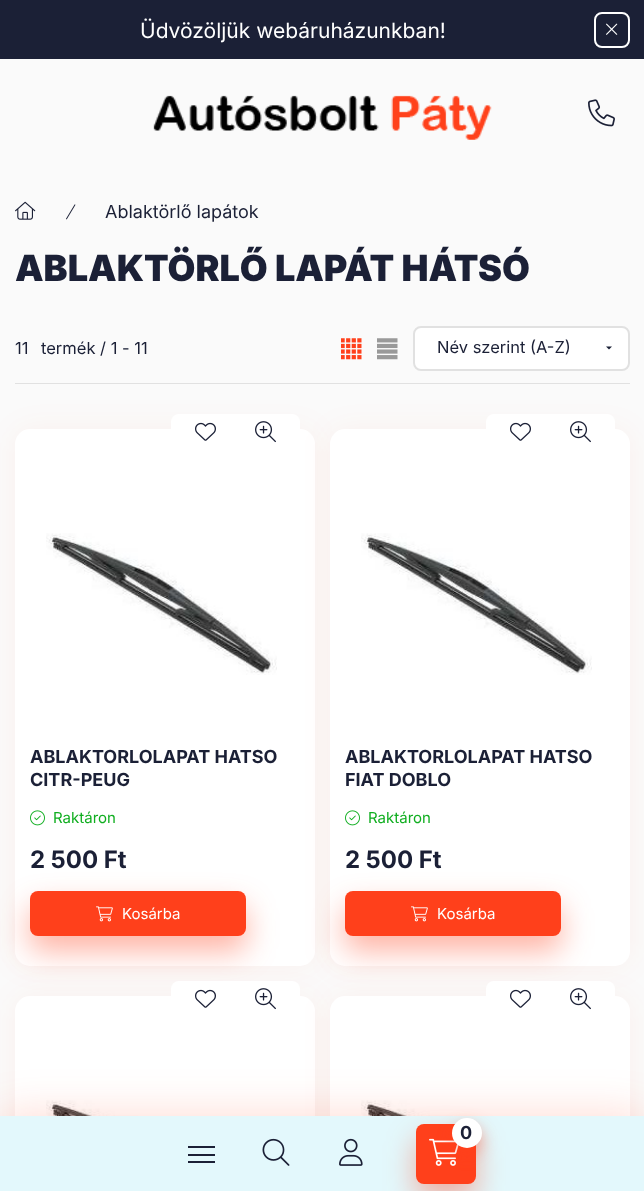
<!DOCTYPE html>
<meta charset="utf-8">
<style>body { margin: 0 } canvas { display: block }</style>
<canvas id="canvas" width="644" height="1191"></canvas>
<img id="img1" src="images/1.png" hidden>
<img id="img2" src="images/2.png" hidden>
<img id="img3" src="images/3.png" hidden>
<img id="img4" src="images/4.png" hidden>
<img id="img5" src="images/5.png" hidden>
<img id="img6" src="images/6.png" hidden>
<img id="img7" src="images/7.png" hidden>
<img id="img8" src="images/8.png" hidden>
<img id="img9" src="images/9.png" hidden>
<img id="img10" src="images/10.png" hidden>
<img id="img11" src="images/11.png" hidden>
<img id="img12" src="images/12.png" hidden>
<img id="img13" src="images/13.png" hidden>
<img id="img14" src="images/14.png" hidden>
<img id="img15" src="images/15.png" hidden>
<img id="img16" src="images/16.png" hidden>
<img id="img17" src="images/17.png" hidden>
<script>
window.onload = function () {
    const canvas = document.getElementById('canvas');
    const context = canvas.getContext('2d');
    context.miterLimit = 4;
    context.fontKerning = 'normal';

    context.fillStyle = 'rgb(250, 250, 250)';
    context.fillRect(0, 0, 644, 1191);
    context.fillStyle = 'rgb(27, 32, 54)';
    context.fillRect(0, 0, 644, 59);
    context.beginPath();
    context.roundRect(595, 13, 34, 34, 7);
    context.strokeStyle = 'rgb(255, 255, 255)';
    context.lineWidth = 2;
    context.stroke();
    context.drawImage(document.getElementById('img1'), 606, 23, 12, 12);
    context.drawImage(document.getElementById('img2'), 153, 95, 339, 45);
    context.drawImage(document.getElementById('img3'), 588, 99, 27, 28);
    context.drawImage(document.getElementById('img4'), 15, 201, 21, 19);
    context.drawImage(document.getElementById('img5'), 66, 204, 10, 16);
    context.fillStyle = 'rgb(225, 225, 225)';
    context.fillRect(15, 383, 615, 1);
    context.drawImage(document.getElementById('img6'), 341, 338, 21, 22);
    context.drawImage(document.getElementById('img7'), 377, 338, 21, 22);
    context.fillStyle = 'rgb(255, 255, 255)';
    context.beginPath();
    context.roundRect(414, 327, 215, 43, 7);
    context.fill();
    context.strokeStyle = 'rgb(225, 225, 225)';
    context.stroke();
    context.fillStyle = 'rgb(27, 32, 54)';
    context.beginPath();
    context.moveTo(606, 346.5);
    context.lineTo(612, 346.5);
    context.lineTo(609, 349.5);
    context.closePath();
    context.fill();
    context.fillStyle = 'rgba(255, 64, 27, 0.05)';
    context.filter = 'blur(15px)';
    context.beginPath();
    context.roundRect(15, 429, 300, 537, 15);
    context.fill();
    context.filter = 'none';
    context.fillStyle = 'rgb(255, 255, 255)';
    context.beginPath();
    context.roundRect(15, 429, 300, 537, 15);
    context.fill();
    context.fillStyle = 'rgba(255, 64, 27, 0.05)';
    context.filter = 'blur(15px)';
    context.beginPath();
    context.roundRect(330, 429, 300, 537, 15);
    context.fill();
    context.filter = 'none';
    context.fillStyle = 'rgb(255, 255, 255)';
    context.beginPath();
    context.roundRect(171, 414, 129, 36, 8);
    context.fill();
    context.drawImage(document.getElementById('img8'), 195, 422, 21, 19);
    context.drawImage(document.getElementById('img9'), 255, 421, 21, 22);
    context.drawImage(document.getElementById('img10'), 46, 533, 231, 142);
    context.drawImage(document.getElementById('img11'), 30, 810, 15, 16);
    context.fillStyle = 'rgba(255, 64, 27, 0.4)';
    context.filter = 'blur(15px)';
    context.beginPath();
    context.roundRect(30, 906, 216, 45, 8);
    context.fill();
    context.filter = 'none';
    context.fillStyle = 'rgb(255, 64, 27)';
    context.beginPath();
    context.roundRect(30, 891, 216, 45, 8);
    context.fill();
    context.drawImage(document.getElementById('img12'), 96, 906, 17, 16);
    context.fillStyle = 'rgb(255, 255, 255)';
    context.beginPath();
    context.roundRect(330, 429, 300, 537, 15);
    context.fill();
    context.beginPath();
    context.roundRect(486, 414, 129, 36, 8);
    context.fill();
    context.drawImage(document.getElementById('img8'), 510, 422, 21, 19);
    context.drawImage(document.getElementById('img9'), 570, 421, 21, 22);
    context.drawImage(document.getElementById('img13'), 361, 533, 231, 142);
    context.drawImage(document.getElementById('img11'), 345, 810, 15, 16);
    context.fillStyle = 'rgba(255, 64, 27, 0.4)';
    context.filter = 'blur(15px)';
    context.beginPath();
    context.roundRect(345, 906, 216, 45, 8);
    context.fill();
    context.filter = 'none';
    context.fillStyle = 'rgb(255, 64, 27)';
    context.beginPath();
    context.roundRect(345, 891, 216, 45, 8);
    context.fill();
    context.drawImage(document.getElementById('img12'), 411, 906, 17, 16);
    context.fillStyle = 'rgba(255, 64, 27, 0.05)';
    context.filter = 'blur(15px)';
    context.beginPath();
    context.roundRect(15, 996, 300, 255, 15);
    context.fill();
    context.filter = 'none';
    context.fillStyle = 'rgb(255, 255, 255)';
    context.beginPath();
    context.roundRect(15, 996, 300, 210, 15);
    context.fill();
    context.fillStyle = 'rgba(255, 64, 27, 0.05)';
    context.filter = 'blur(15px)';
    context.beginPath();
    context.roundRect(330, 996, 300, 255, 15);
    context.fill();
    context.filter = 'none';
    context.fillStyle = 'rgb(255, 255, 255)';
    context.beginPath();
    context.roundRect(171, 981, 129, 36, 8);
    context.fill();
    context.drawImage(document.getElementById('img8'), 195, 989, 21, 19);
    context.drawImage(document.getElementById('img9'), 255, 988, 21, 22);
    context.drawImage(document.getElementById('img14'), 46, 1100, 185, 16);
    context.beginPath();
    context.roundRect(330, 996, 300, 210, 15);
    context.fill();
    context.beginPath();
    context.roundRect(486, 981, 129, 36, 8);
    context.fill();
    context.drawImage(document.getElementById('img8'), 510, 989, 21, 19);
    context.drawImage(document.getElementById('img9'), 570, 988, 21, 22);
    context.drawImage(document.getElementById('img14'), 361, 1100, 185, 16);
    context.fillStyle = 'rgba(255, 64, 27, 0.2)';
    context.filter = 'blur(22.5px)';
    context.beginPath();
    context.rect(0, 1116, 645, 75);
    context.fill();
    context.filter = 'none';
    context.fillStyle = 'rgb(227, 248, 252)';
    context.fillRect(0, 1116, 644, 75);
    context.fillStyle = 'rgba(255, 64, 27, 0.4)';
    context.filter = 'blur(15px)';
    context.beginPath();
    context.roundRect(416, 1139, 60, 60, 8);
    context.fill();
    context.filter = 'none';
    context.fillStyle = 'rgb(255, 64, 27)';
    context.beginPath();
    context.roundRect(416, 1124, 60, 60, 8);
    context.fill();
    context.drawImage(document.getElementById('img15'), 429, 1138, 30, 28);
    context.fillStyle = 'rgba(255, 64, 27, 0.4)';
    context.filter = 'blur(7.5px)';
    context.beginPath();
    context.roundRect(452, 1125, 30, 30, 15);
    context.fill();
    context.filter = 'none';
    context.fillStyle = 'rgb(255, 255, 255)';
    context.beginPath();
    context.arc(467, 1133, 15, 0, 2 * Math.PI);
    context.fill();
    context.fillStyle = 'rgb(27, 32, 54)';
    context.fillRect(188, 1146, 27, 2);
    context.fillRect(188, 1154, 27, 2);
    context.fillRect(188, 1161, 27, 2);
    context.drawImage(document.getElementById('img16'), 262, 1138, 28, 28);
    context.drawImage(document.getElementById('img17'), 339, 1138, 24, 28);
    context.font = '21px Inter';
    context.fillStyle = 'rgb(255, 255, 255)';
    context.fillText('Üdvözöljük webáruházunkban!', 140, 38);
    context.font = '18px Inter';
    context.fillStyle = 'rgb(27, 32, 54)';
    context.fillText('Ablaktörlő lapátok', 105, 218);
    context.font = '900 36px Inter';
    context.fillText('ABLAKTÖRLŐ LAPÁT HÁTSÓ', 15, 281);
    context.font = '16.5px Inter';
    context.fillText('11', 15, 354);
    context.fillText('termék / 1 - 11', 41, 354);
    context.fillText('Név szerint (A-Z)', 437, 353);
    context.font = 'bold 18px Inter';
    context.fillText('ABLAKTORLOLAPAT HATSO', 30, 763);
    context.fillText('CITR-PEUG', 30, 786);
    context.font = '15px Inter';
    context.fillStyle = 'rgb(16, 174, 32)';
    context.fillText('Raktáron', 53, 823);
    context.font = 'bold 24px Inter';
    context.fillStyle = 'rgb(27, 32, 54)';
    context.fillText('2 500 Ft', 30, 868);
    context.font = '15px Inter';
    context.fillStyle = 'rgb(255, 255, 255)';
    context.fillText('Kosárba', 122, 919);
    context.font = 'bold 18px Inter';
    context.fillStyle = 'rgb(27, 32, 54)';
    context.fillText('ABLAKTORLOLAPAT HATSO', 345, 763);
    context.fillText('FIAT DOBLO', 345, 786);
    context.font = '15px Inter';
    context.fillStyle = 'rgb(16, 174, 32)';
    context.fillText('Raktáron', 368, 823);
    context.font = 'bold 24px Inter';
    context.fillStyle = 'rgb(27, 32, 54)';
    context.fillText('2 500 Ft', 345, 868);
    context.font = '15px Inter';
    context.fillStyle = 'rgb(255, 255, 255)';
    context.fillText('Kosárba', 437, 919);
    context.font = 'bold 18px Inter';
    context.fillStyle = 'rgb(27, 32, 54)';
    context.fillText('0', 460, 1139);
};
</script>
